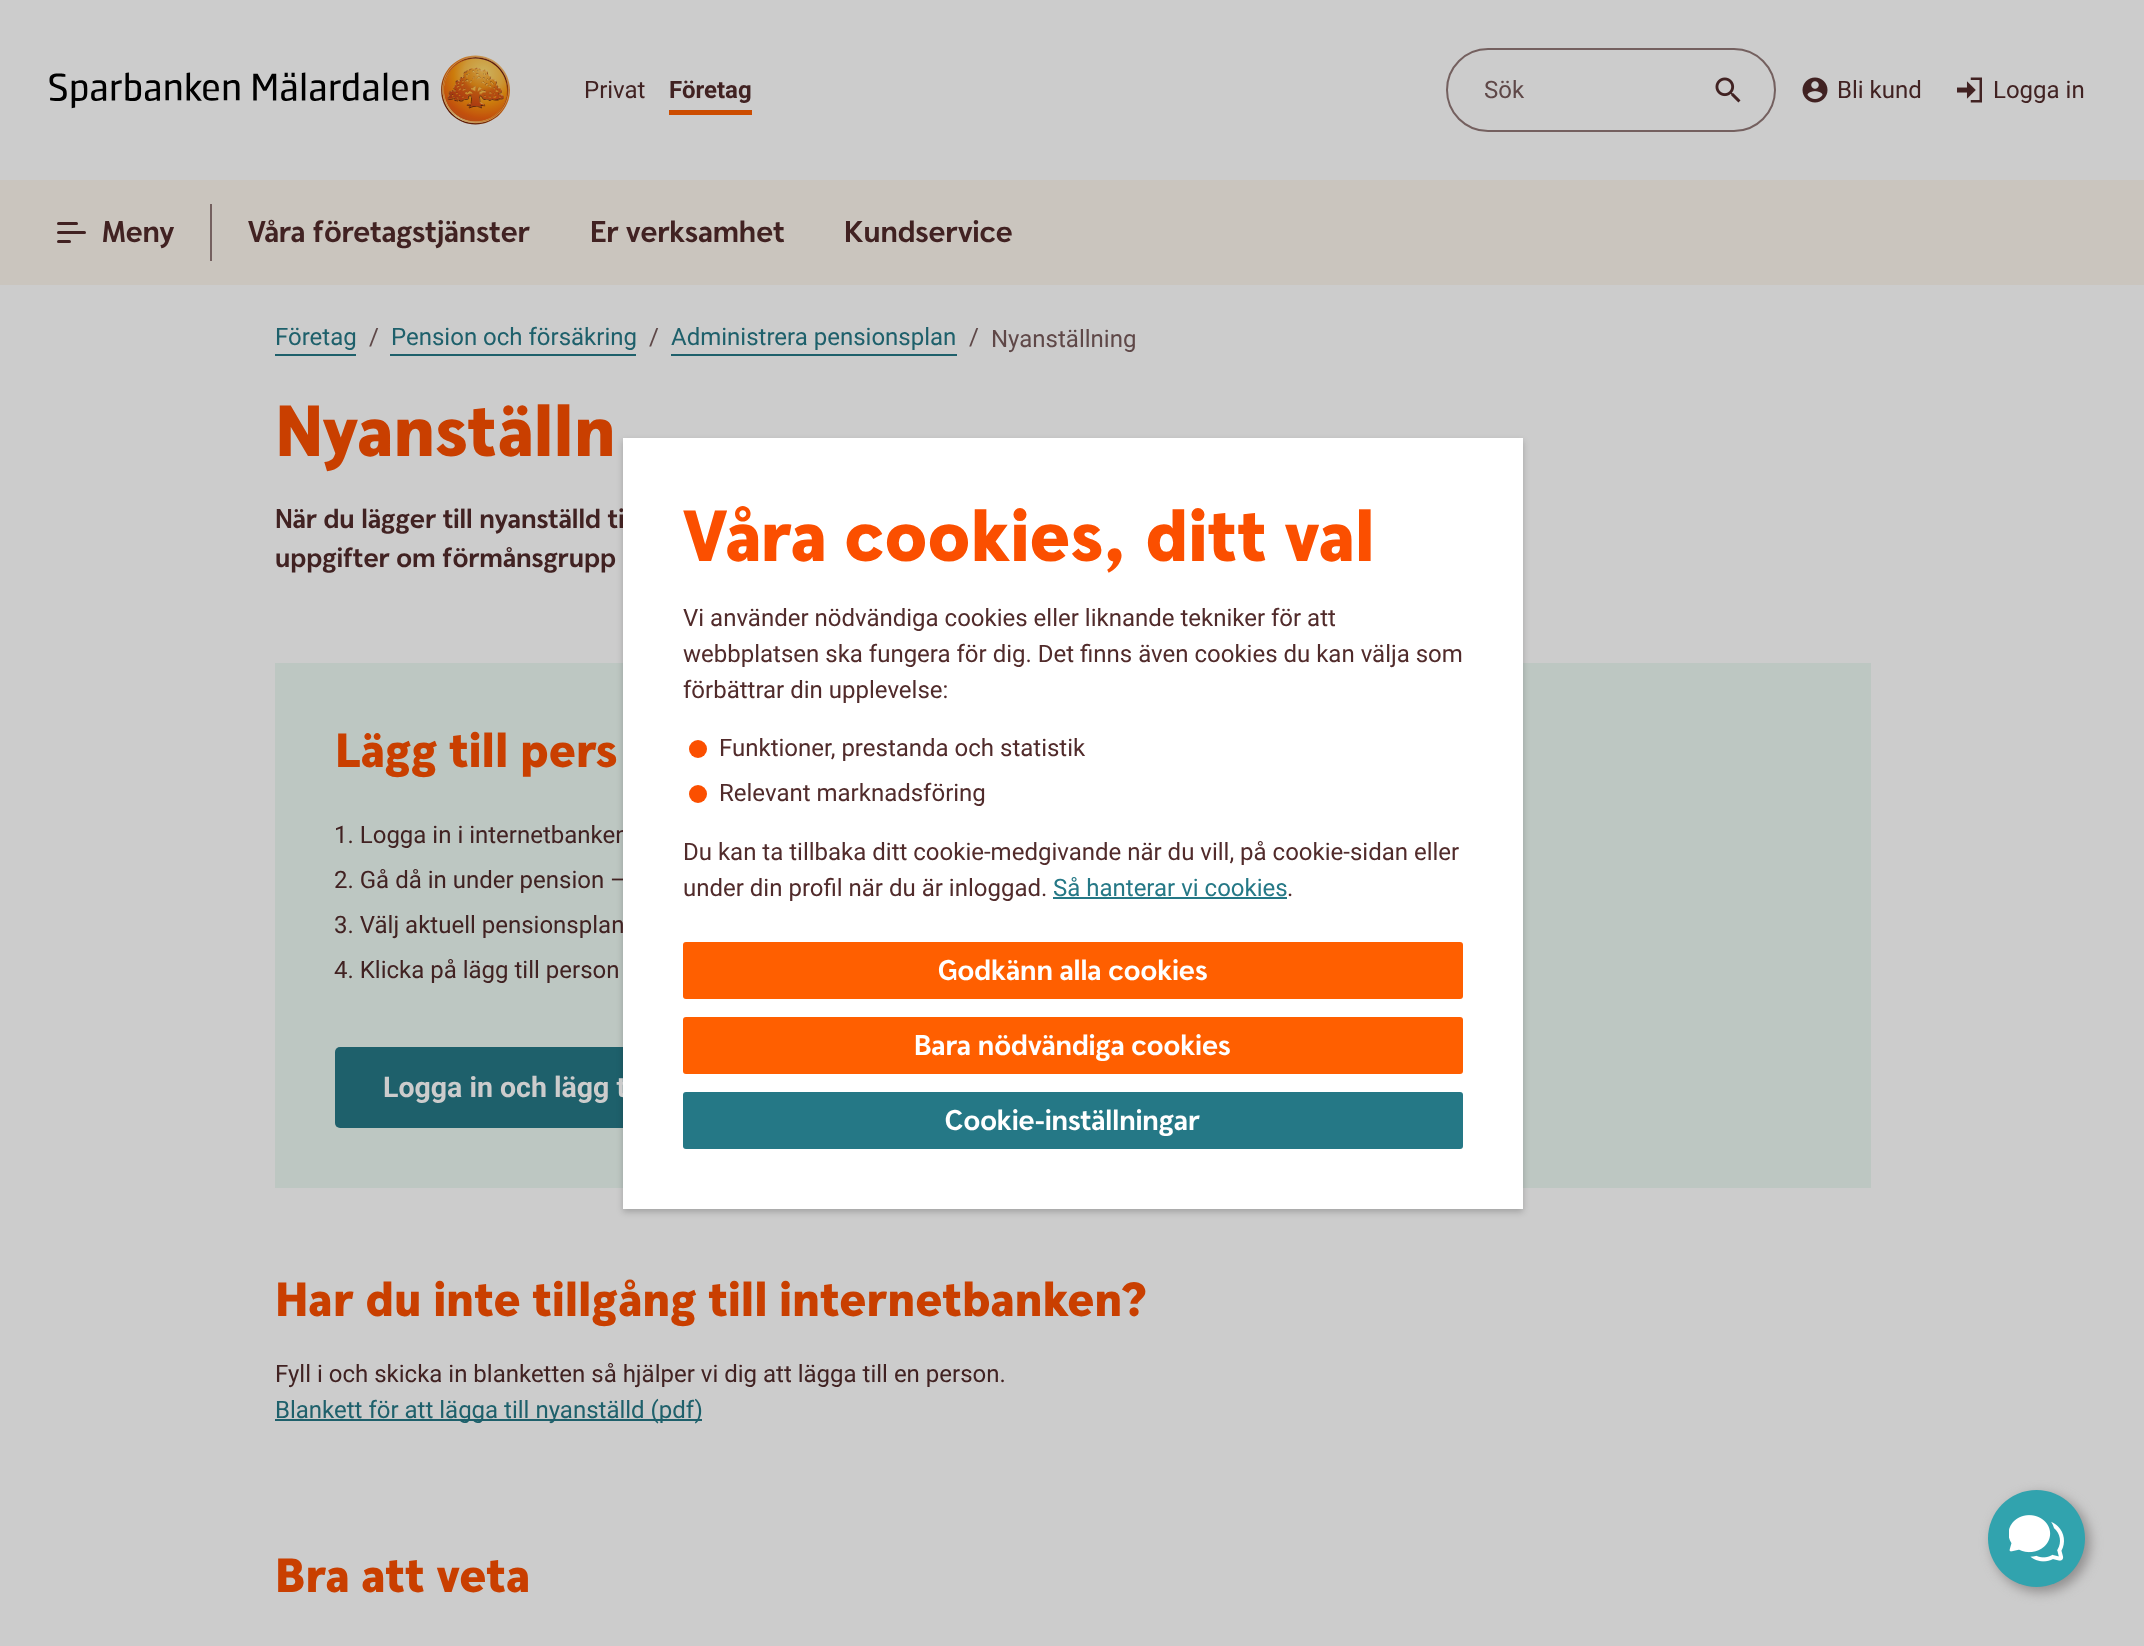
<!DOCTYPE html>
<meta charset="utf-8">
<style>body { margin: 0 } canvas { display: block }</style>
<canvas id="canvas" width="2144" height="1646"></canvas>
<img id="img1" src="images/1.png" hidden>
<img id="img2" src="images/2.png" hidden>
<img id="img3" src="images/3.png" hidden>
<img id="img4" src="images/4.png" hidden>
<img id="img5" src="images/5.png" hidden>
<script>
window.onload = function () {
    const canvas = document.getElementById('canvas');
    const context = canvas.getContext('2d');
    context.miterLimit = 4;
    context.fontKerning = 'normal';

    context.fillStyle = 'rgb(204, 204, 204)';
    context.fillRect(0, 0, 2144, 1646);
    context.drawImage(document.getElementById('img1'), 49, 55, 461, 70);
    context.fillStyle = 'rgb(204, 76, 0)';
    context.fillRect(669, 110, 83, 5);
    context.beginPath();
    context.roundRect(1447, 49, 328, 82, 41);
    context.strokeStyle = 'rgb(116, 96, 95)';
    context.lineWidth = 2;
    context.stroke();
    context.drawImage(document.getElementById('img2'), 1715, 77, 26, 26);
    context.drawImage(document.getElementById('img3'), 1802, 77, 26, 26);
    context.drawImage(document.getElementById('img4'), 1957, 77, 25, 26);
    context.fillStyle = 'rgb(202, 197, 190)';
    context.fillRect(0, 180, 2144, 105);
    context.fillStyle = 'rgb(65, 34, 34)';
    context.beginPath();
    context.roundRect(57, 222, 21, 3, 1.5);
    context.fill();
    context.beginPath();
    context.roundRect(57, 231, 29, 3, 1.5);
    context.fill();
    context.beginPath();
    context.roundRect(57, 240, 14, 3, 1.5);
    context.fill();
    context.fillStyle = 'rgb(116, 96, 95)';
    context.fillRect(210, 204, 2, 57);
    context.fillStyle = 'rgb(30, 96, 107)';
    context.fillRect(275, 354, 81, 2);
    context.fillRect(390, 354, 246, 2);
    context.fillRect(671, 354, 286, 2);
    context.fillStyle = 'rgb(189, 199, 194)';
    context.fillRect(275, 663, 1596, 525);
    context.fillStyle = 'rgb(30, 96, 107)';
    context.beginPath();
    context.roundRect(335, 1047, 496, 81, 5);
    context.fill();
    context.fillRect(275, 1419, 427, 2);
    context.fillStyle = 'rgba(0, 0, 0, 0.2)';
    context.filter = 'blur(3px)';
    context.beginPath();
    context.rect(623, 441, 900, 771);
    context.fill();
    context.filter = 'none';
    context.fillStyle = 'rgb(144, 142, 142)';
    context.filter = 'blur(6px)';
    context.beginPath();
    context.roundRect(1992, 1494, 98, 98, 49);
    context.fill();
    context.filter = 'none';
    context.fillStyle = 'rgb(49, 163, 174)';
    context.beginPath();
    context.arc(2036.5, 1538.5, 48.5, 0, 2 * Math.PI);
    context.fill();
    context.drawImage(document.getElementById('img5'), 2009, 1515, 55, 47);
    context.font = '24px Roboto';
    context.fillStyle = 'rgb(65, 34, 34)';
    context.fillText('Privat', 584, 98);
    context.font = 'bold 24px Roboto';
    context.fillText('Företag', 669, 98);
    context.font = '24px Roboto';
    context.fillStyle = 'rgb(95, 72, 72)';
    context.fillText('Sök', 1484, 98);
    context.fillStyle = 'rgb(65, 34, 34)';
    context.fillText('Bli kund', 1837, 98);
    context.fillText('Logga in', 1993, 98);
    context.font = 'bold 30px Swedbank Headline';
    context.fillText('Meny', 102, 242);
    context.fillText('Våra företagstjänster', 248, 242);
    context.fillText('Er verksamhet', 590, 242);
    context.fillText('Kundservice', 844, 242);
    context.font = '24px Roboto';
    context.fillStyle = 'rgb(30, 96, 107)';
    context.fillText('Företag', 275, 345);
    context.fillStyle = 'rgb(95, 72, 72)';
    context.fillText('/', 369, 345);
    context.fillStyle = 'rgb(30, 96, 107)';
    context.fillText('Pension och försäkring', 391, 345);
    context.fillStyle = 'rgb(95, 72, 72)';
    context.fillText('/', 649, 345);
    context.fillStyle = 'rgb(30, 96, 107)';
    context.fillText('Administrera pensionsplan', 671, 345);
    context.fillStyle = 'rgb(95, 72, 72)';
    context.fillText('/', 969, 345);
    context.fillText('Nyanställning', 991, 347);
    context.font = '900 72px Swedbank Headline';
    context.fillStyle = 'rgb(201, 63, 0)';
    context.fillText('Nyanställn', 275, 456);
    context.font = 'bold 27px Swedbank Headline';
    context.fillStyle = 'rgb(65, 34, 34)';
    context.fillText('När du lägger till nyanställd ti', 275, 528);
    context.fillText('uppgifter om förmånsgrupp', 275, 567);
    context.font = '900 48px Swedbank Headline';
    context.fillStyle = 'rgb(201, 63, 0)';
    context.fillText('Lägg till pers', 335, 767);
    context.font = '24px Roboto';
    context.fillStyle = 'rgb(65, 34, 34)';
    context.fillText('1. Logga in i internetbanken', 334, 843);
    context.fillText('2. Gå då in under pension –', 334, 888);
    context.fillText('3. Välj aktuell pensionsplan', 334, 933);
    context.fillText('4. Klicka på lägg till person', 334, 978);
    context.font = 'bold 28.5px Roboto';
    context.fillStyle = 'rgb(204, 204, 204)';
    context.fillText('Logga in och lägg t', 383, 1097);
    context.font = '900 48px Swedbank Headline';
    context.fillStyle = 'rgb(201, 63, 0)';
    context.fillText('Har du inte tillgång till internetbanken?', 275, 1316);
    context.font = '24px Roboto';
    context.fillStyle = 'rgb(65, 34, 34)';
    context.fillText('Fyll i och skicka in blanketten så hjälper vi dig att lägga till en person.', 275, 1382);
    context.fillStyle = 'rgb(30, 96, 107)';
    context.fillText('Blankett för att lägga till nyanställd (pdf)', 275, 1418);
    context.font = '900 48px Swedbank Headline';
    context.fillStyle = 'rgb(201, 63, 0)';
    context.fillText('Bra att veta', 275, 1592);
    context.fillStyle = 'rgb(255, 255, 255)';
    context.fillRect(623, 438, 900, 771);
    context.font = '900 72px Swedbank Headline';
    context.fillStyle = 'rgb(251, 79, 0)';
    context.fillText('Våra cookies, ditt val', 683, 561);
    context.font = '24px Roboto';
    context.fillStyle = 'rgb(81, 43, 43)';
    context.fillText('Vi använder nödvändiga cookies eller liknande tekniker för att', 683, 626);
    context.fillText('webbplatsen ska fungera för dig. Det finns även cookies du kan välja som', 683, 662);
    context.fillText('förbättrar din upplevelse:', 683, 698);
    context.fillStyle = 'rgb(251, 79, 0)';
    context.beginPath();
    context.arc(698, 749, 9, 0, 2 * Math.PI);
    context.fill();
    context.fillStyle = 'rgb(81, 43, 43)';
    context.fillText('Funktioner, prestanda och statistik', 719, 756);
    context.fillStyle = 'rgb(251, 79, 0)';
    context.beginPath();
    context.arc(698, 794, 9, 0, 2 * Math.PI);
    context.fill();
    context.fillStyle = 'rgb(81, 43, 43)';
    context.fillText('Relevant marknadsföring', 719, 801);
    context.fillText('Du kan ta tillbaka ditt cookie-medgivande när du vill, på cookie-sidan eller', 683, 860);
    context.fillText('under din profil när du är inloggad.', 683, 896);
    context.fillStyle = 'rgb(37, 120, 134)';
    context.fillText('Så hanterar vi cookies', 1053, 896);
    context.fillRect(1053, 897, 234, 2);
    context.fillStyle = 'rgb(81, 43, 43)';
    context.fillText('.', 1287, 896);
    context.fillStyle = 'rgb(255, 95, 0)';
    context.beginPath();
    context.roundRect(683, 942, 780, 57, 3);
    context.fill();
    context.font = 'bold 28.5px Swedbank Headline';
    context.fillStyle = 'rgb(255, 255, 255)';
    context.fillText('Godkänn alla cookies', 938, 980);
    context.fillStyle = 'rgb(255, 95, 0)';
    context.beginPath();
    context.roundRect(683, 1017, 780, 57, 3);
    context.fill();
    context.fillStyle = 'rgb(255, 255, 255)';
    context.fillText('Bara nödvändiga cookies', 914, 1055);
    context.fillStyle = 'rgb(37, 120, 134)';
    context.beginPath();
    context.roundRect(683, 1092, 780, 57, 3);
    context.fill();
    context.fillStyle = 'rgb(255, 255, 255)';
    context.fillText('Cookie-inställningar', 945, 1130);
};
</script>
